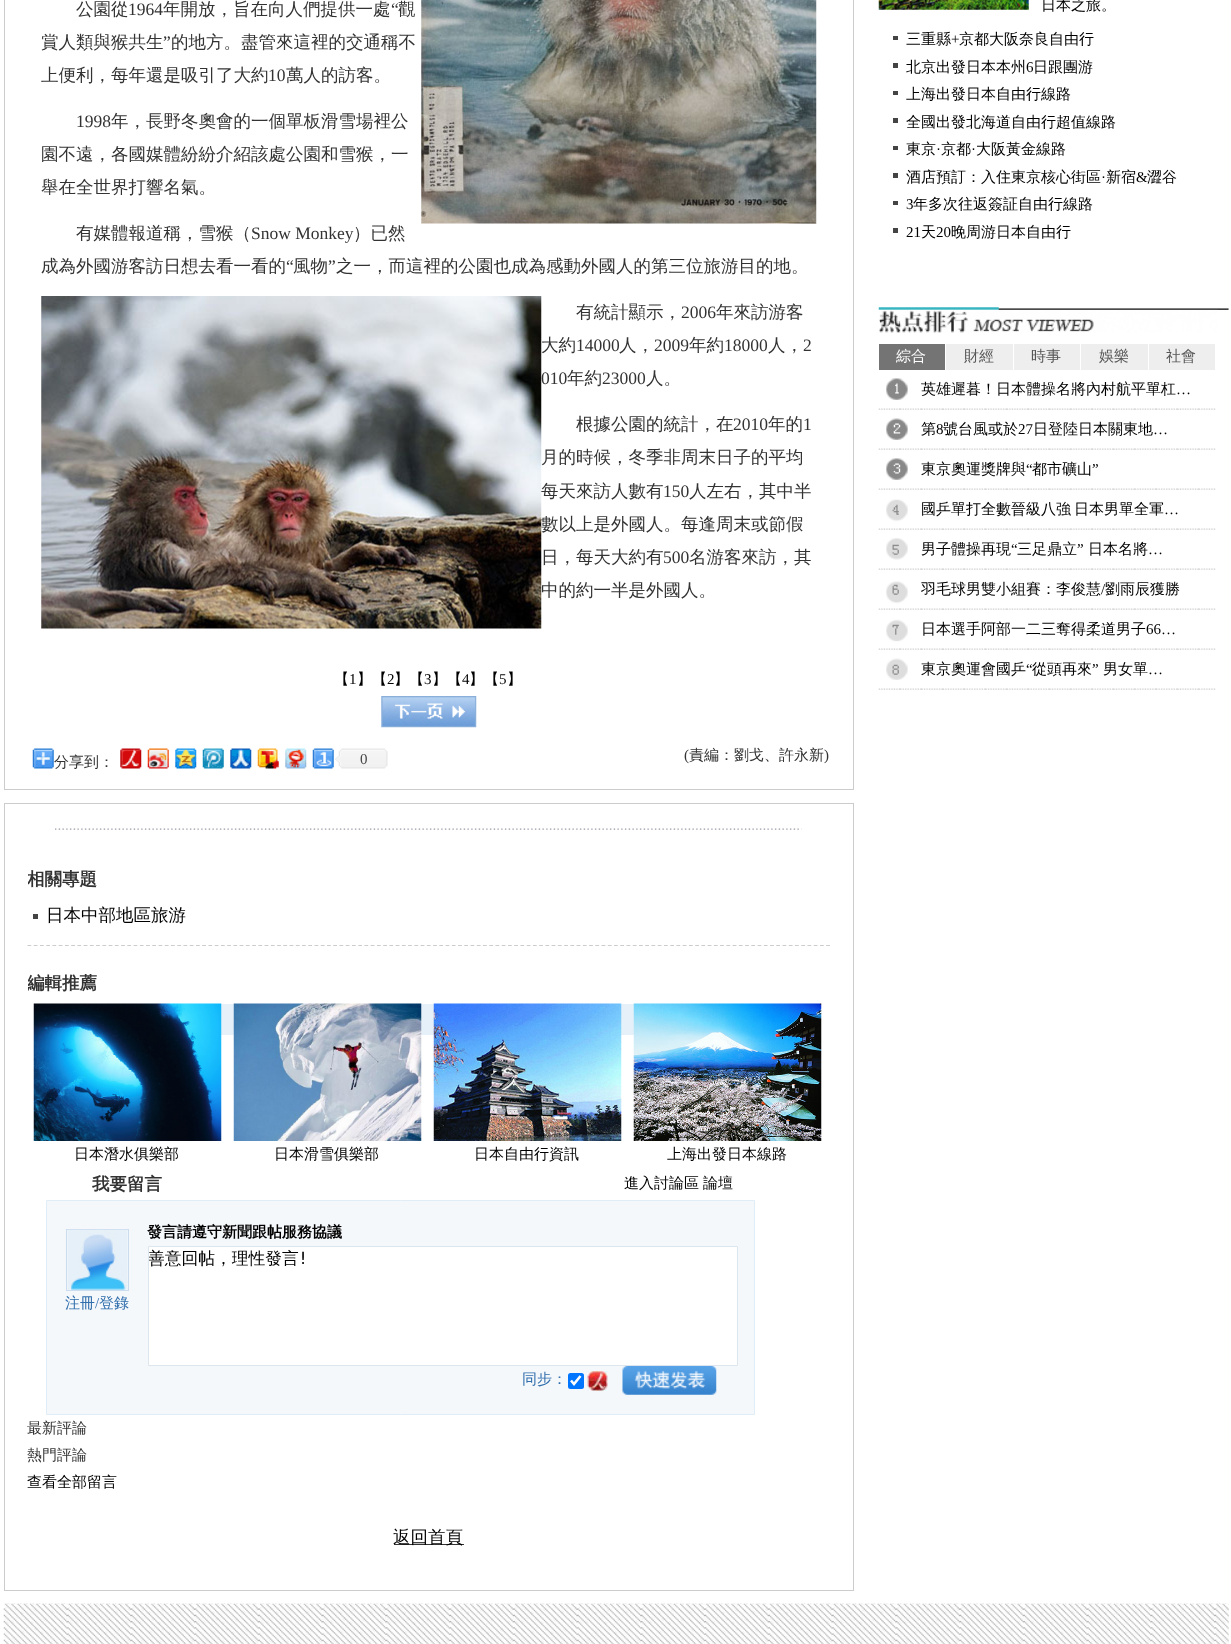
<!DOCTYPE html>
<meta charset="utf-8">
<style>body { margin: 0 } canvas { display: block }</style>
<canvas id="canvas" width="1231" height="1644"></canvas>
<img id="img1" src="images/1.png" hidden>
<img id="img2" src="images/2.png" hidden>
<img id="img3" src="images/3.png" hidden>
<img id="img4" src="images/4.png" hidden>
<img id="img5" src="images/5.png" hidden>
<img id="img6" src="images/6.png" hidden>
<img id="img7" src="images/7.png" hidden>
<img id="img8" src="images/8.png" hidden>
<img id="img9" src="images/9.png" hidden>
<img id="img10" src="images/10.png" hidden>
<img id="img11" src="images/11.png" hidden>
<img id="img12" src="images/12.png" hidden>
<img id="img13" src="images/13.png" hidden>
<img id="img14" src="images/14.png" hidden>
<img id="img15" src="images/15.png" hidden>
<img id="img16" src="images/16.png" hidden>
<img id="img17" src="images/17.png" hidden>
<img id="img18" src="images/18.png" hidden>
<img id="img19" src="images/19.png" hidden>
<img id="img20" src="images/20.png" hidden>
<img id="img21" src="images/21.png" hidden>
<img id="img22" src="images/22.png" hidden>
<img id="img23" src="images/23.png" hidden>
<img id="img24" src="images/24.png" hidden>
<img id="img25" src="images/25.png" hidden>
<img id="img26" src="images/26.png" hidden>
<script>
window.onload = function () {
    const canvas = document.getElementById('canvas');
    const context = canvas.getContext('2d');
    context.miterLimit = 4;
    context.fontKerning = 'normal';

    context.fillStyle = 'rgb(255, 255, 255)';
    context.fillRect(0, 0, 1231, 1644);
    context.strokeStyle = 'rgb(204, 204, 204)';
    context.strokeRect(4.5, -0.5, 849, 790);
    context.drawImage(document.getElementById('img1'), 421, 0, 396, 224);
    context.drawImage(document.getElementById('img2'), 41, 296, 501, 333);
    context.drawImage(document.getElementById('img3'), 381, 696, 96, 32);
    context.drawImage(document.getElementById('img4'), 32, 748, 22, 21);
    context.drawImage(document.getElementById('img5'), 120, 748, 22, 21);
    context.drawImage(document.getElementById('img6'), 147, 748, 22, 21);
    context.drawImage(document.getElementById('img7'), 175, 748, 22, 21);
    context.drawImage(document.getElementById('img8'), 202, 748, 22, 21);
    context.drawImage(document.getElementById('img9'), 230, 748, 22, 21);
    context.drawImage(document.getElementById('img10'), 257, 748, 22, 21);
    context.drawImage(document.getElementById('img11'), 285, 748, 22, 21);
    context.drawImage(document.getElementById('img12'), 312, 748, 22, 21);
    context.drawImage(document.getElementById('img13'), 335, 748, 53, 21);
    context.strokeRect(4.5, 803.5, 849, 787);
    context.drawImage(document.getElementById('img14'), 55, 828, 747, 2);
    context.fillStyle = 'rgb(68, 68, 68)';
    context.fillRect(33, 914, 5, 5);
    context.beginPath();
    context.moveTo(27.5, 945.5);
    context.lineTo(830, 945.5);
    context.lineWidth = 1.2;
    context.setLineDash([3.75, 2.49]);
    context.stroke();
    context.fillStyle = 'rgb(230, 240, 248)';
    context.fillRect(221, 1004, 413, 31);
    context.drawImage(document.getElementById('img15'), 33, 1003, 189, 138);
    context.drawImage(document.getElementById('img16'), 233, 1003, 189, 138);
    context.drawImage(document.getElementById('img17'), 433, 1003, 189, 138);
    context.drawImage(document.getElementById('img18'), 633, 1003, 189, 138);
    context.fillStyle = 'rgb(245, 248, 251)';
    context.beginPath();
    context.rect(46.5, 1200.5, 708, 214);
    context.fill();
    context.strokeStyle = 'rgb(225, 237, 246)';
    context.lineWidth = 1;
    context.setLineDash([]);
    context.stroke();
    context.strokeStyle = 'rgb(203, 220, 238)';
    context.strokeRect(66.5, 1229.5, 62, 61);
    context.drawImage(document.getElementById('img19'), 67, 1229, 61, 61);
    context.fillStyle = 'rgb(255, 255, 255)';
    context.beginPath();
    context.rect(148.5, 1246.5, 589, 119);
    context.fill();
    context.strokeStyle = 'rgb(221, 230, 238)';
    context.stroke();
    context.fillStyle = 'rgb(0, 117, 255)';
    context.beginPath();
    context.roundRect(568, 1373, 16, 16, 2.5);
    context.fill();
    context.beginPath();
    context.moveTo(571, 1380.5);
    context.lineTo(574, 1384);
    context.lineTo(580.5, 1376);
    context.strokeStyle = 'rgb(255, 255, 255)';
    context.lineWidth = 2.6;
    context.stroke();
    context.drawImage(document.getElementById('img20'), 587, 1371, 21, 20);
    context.drawImage(document.getElementById('img21'), 622, 1366, 95, 29);
    context.fillStyle = 'rgb(51, 51, 51)';
    context.fillRect(394, 1544, 70, 1);
    context.drawImage(document.getElementById('img22'), 878, 0, 151, 10);
    context.fillStyle = 'rgb(68, 68, 68)';
    context.fillRect(893, 36, 5, 4);
    context.fillRect(893, 63, 5, 5);
    context.fillRect(893, 91, 5, 4);
    context.fillRect(893, 118, 5, 5);
    context.fillRect(893, 146, 5, 4);
    context.fillRect(893, 173, 5, 5);
    context.fillRect(893, 201, 5, 4);
    context.fillRect(893, 228, 5, 5);
    context.drawImage(document.getElementById('img23'), 878, 307, 351, 3);
    context.drawImage(document.getElementById('img24'), 879, 309, 339, 24);
    context.fillStyle = 'rgb(116, 116, 116)';
    context.fillRect(879, 344, 66, 26);
    context.fillStyle = 'rgb(238, 238, 238)';
    context.fillRect(946, 344, 67, 26);
    context.fillRect(1014, 344, 66, 26);
    context.fillRect(1081, 344, 67, 26);
    context.fillRect(1149, 344, 66, 26);
    context.drawImage(document.getElementById('img25'), 878, 378, 338, 312);
    context.drawImage(document.getElementById('img26'), 3, 1603, 1226, 41);
    context.font = '500 17.5px WenQuanYi Zen Hei';
    context.fillStyle = 'rgb(51, 51, 51)';
    context.fillText('公園從', 76, 15);
    context.font = '17.5px Liberation Serif';
    context.fillText('1964', 128, 15);
    context.font = '500 17.5px WenQuanYi Zen Hei';
    context.fillText('年開放，旨在向人們提供一處', 163, 15);
    context.font = '17.5px Liberation Serif';
    context.fillText('“', 391, 15);
    context.font = '500 17.5px WenQuanYi Zen Hei';
    context.fillText('觀', 398, 15);
    context.fillText('賞人類與猴共生', 41, 48);
    context.font = '17.5px Liberation Serif';
    context.fillText('”', 163, 48);
    context.font = '500 17.5px WenQuanYi Zen Hei';
    context.fillText('的地方。盡管來這裡的交通稱不', 171, 48);
    context.fillText('上便利，每年還是吸引了大約', 41, 81);
    context.font = '17.5px Liberation Serif';
    context.fillText('10', 268, 81);
    context.font = '500 17.5px WenQuanYi Zen Hei';
    context.fillText('萬人的訪客。', 286, 81);
    context.font = '17.5px Liberation Serif';
    context.fillText('1998', 76, 127);
    context.font = '500 17.5px WenQuanYi Zen Hei';
    context.fillText('年，長野冬奧會的一個單板滑雪場裡公', 111, 127);
    context.fillText('園不遠，各國媒體紛紛介紹該處公園和雪猴，一', 41, 160);
    context.fillText('舉在全世界打響名氣。', 41, 193);
    context.fillText('有媒體報道稱，雪猴（', 76, 239);
    context.font = '17.5px Liberation Serif';
    context.fillText('Snow Monkey', 251, 239);
    context.font = '500 17.5px WenQuanYi Zen Hei';
    context.fillText('）已然', 353, 239);
    context.fillText('成為外國游客訪日想去看一看的', 41, 272);
    context.font = '17.5px Liberation Serif';
    context.fillText('“', 286, 272);
    context.font = '500 17.5px WenQuanYi Zen Hei';
    context.fillText('風物', 293, 272);
    context.font = '17.5px Liberation Serif';
    context.fillText('”', 328, 272);
    context.font = '500 17.5px WenQuanYi Zen Hei';
    context.fillText('之一，而這裡的公園也成為感動外國人的第三位旅游目的地。', 336, 272);
    context.fillText('有統計顯示，', 576, 318);
    context.font = '17.5px Liberation Serif';
    context.fillText('2006', 681, 318);
    context.font = '500 17.5px WenQuanYi Zen Hei';
    context.fillText('年來訪游客', 716, 318);
    context.fillText('大約', 541, 351);
    context.font = '17.5px Liberation Serif';
    context.fillText('14000', 576, 351);
    context.font = '500 17.5px WenQuanYi Zen Hei';
    context.fillText('人，', 619, 351);
    context.font = '17.5px Liberation Serif';
    context.fillText('2009', 654, 351);
    context.font = '500 17.5px WenQuanYi Zen Hei';
    context.fillText('年約', 689, 351);
    context.font = '17.5px Liberation Serif';
    context.fillText('18000', 724, 351);
    context.font = '500 17.5px WenQuanYi Zen Hei';
    context.fillText('人，', 768, 351);
    context.font = '17.5px Liberation Serif';
    context.fillText('2', 803, 351);
    context.fillText('010', 541, 384);
    context.font = '500 17.5px WenQuanYi Zen Hei';
    context.fillText('年約', 567, 384);
    context.font = '17.5px Liberation Serif';
    context.fillText('23000', 602, 384);
    context.font = '500 17.5px WenQuanYi Zen Hei';
    context.fillText('人。', 646, 384);
    context.fillText('根據公園的統計，在', 576, 430);
    context.font = '17.5px Liberation Serif';
    context.fillText('2010', 733, 430);
    context.font = '500 17.5px WenQuanYi Zen Hei';
    context.fillText('年的', 768, 430);
    context.font = '17.5px Liberation Serif';
    context.fillText('1', 803, 430);
    context.font = '500 17.5px WenQuanYi Zen Hei';
    context.fillText('月的時候，冬季非周末日子的平均', 541, 463);
    context.fillText('每天來訪人數有', 541, 497);
    context.font = '17.5px Liberation Serif';
    context.fillText('150', 663, 497);
    context.font = '500 17.5px WenQuanYi Zen Hei';
    context.fillText('人左右，其中半', 689, 497);
    context.fillText('數以上是外國人。每逢周末或節假', 541, 530);
    context.fillText('日，每天大約有', 541, 563);
    context.font = '17.5px Liberation Serif';
    context.fillText('500', 663, 563);
    context.font = '500 17.5px WenQuanYi Zen Hei';
    context.fillText('名游客來訪，其', 689, 563);
    context.fillText('中的約一半是外國人。', 541, 596);
    context.font = '500 15px WenQuanYi Zen Hei';
    context.fillStyle = 'rgb(0, 0, 0)';
    context.fillText('【', 334, 684);
    context.font = '15px Liberation Serif';
    context.fillText('1', 349, 684);
    context.font = '500 15px WenQuanYi Zen Hei';
    context.fillText('】【', 357, 684);
    context.font = '15px Liberation Serif';
    context.fillText('2', 387, 684);
    context.font = '500 15px WenQuanYi Zen Hei';
    context.fillText('】【', 394, 684);
    context.font = '15px Liberation Serif';
    context.fillText('3', 424, 684);
    context.font = '500 15px WenQuanYi Zen Hei';
    context.fillText('】【', 432, 684);
    context.font = '15px Liberation Serif';
    context.fillText('4', 462, 684);
    context.font = '500 15px WenQuanYi Zen Hei';
    context.fillText('】【', 469, 684);
    context.font = '15px Liberation Serif';
    context.fillText('5', 499, 684);
    context.font = '500 15px WenQuanYi Zen Hei';
    context.fillText('】', 507, 684);
    context.fillStyle = 'rgb(51, 51, 51)';
    context.fillText('分享到：', 54, 767);
    context.font = '15px Liberation Serif';
    context.fillStyle = 'rgb(69, 69, 69)';
    context.fillText('0', 360, 764);
    context.fillStyle = 'rgb(51, 51, 51)';
    context.fillText('(', 684, 760);
    context.font = '500 15px WenQuanYi Zen Hei';
    context.fillText('責編：劉戈、許永新', 689, 760);
    context.font = '15px Liberation Serif';
    context.fillText(')', 824, 760);
    context.save();
    context.beginPath();
    context.rect(28, 866, 802, 28);
    context.clip();
    context.font = 'bold 17.5px WenQuanYi Zen Hei';
    context.fillText('相關專題', 27, 885);
    context.restore();
    context.font = '500 17.5px WenQuanYi Zen Hei';
    context.fillStyle = 'rgb(0, 0, 0)';
    context.fillText('日本中部地區旅游', 46, 921);
    context.save();
    context.beginPath();
    context.rect(28, 971, 802, 27);
    context.clip();
    context.font = 'bold 17.5px WenQuanYi Zen Hei';
    context.fillStyle = 'rgb(51, 51, 51)';
    context.fillText('編輯推薦', 27, 989);
    context.restore();
    context.font = '500 15px WenQuanYi Zen Hei';
    context.fillText('日本潛水俱樂部', 74, 1159);
    context.fillText('日本滑雪俱樂部', 274, 1159);
    context.fillText('日本自由行資訊', 474, 1159);
    context.fillText('上海出發日本線路', 667, 1159);
    context.font = 'bold 17.5px WenQuanYi Zen Hei';
    context.fillStyle = 'rgb(51, 51, 51)';
    context.fillText('我要留言', 92, 1190);
    context.font = '500 15px WenQuanYi Zen Hei';
    context.fillStyle = 'rgb(0, 0, 0)';
    context.fillText('進入討論區', 624, 1188);
    context.fillText('論壇', 703, 1188);
    context.fillStyle = 'rgb(48, 110, 172)';
    context.fillText('注冊', 65, 1308);
    context.font = '15px Liberation Serif';
    context.fillText('/', 95, 1308);
    context.font = '500 15px WenQuanYi Zen Hei';
    context.fillText('登錄', 99, 1308);
    context.font = 'bold 15px WenQuanYi Zen Hei';
    context.fillStyle = 'rgb(0, 0, 0)';
    context.fillText('發言請遵守新聞跟帖服務協議', 147, 1237);
    context.save();
    context.beginPath();
    context.rect(149, 1248, 587, 117);
    context.clip();
    context.font = '500 16.75px WenQuanYi Zen Hei';
    context.fillText('善意回帖，理性發言', 148, 1264);
    context.restore();
    context.font = '16.75px DejaVu Sans Mono';
    context.fillText('!', 298, 1264);
    context.font = '500 15px WenQuanYi Zen Hei';
    context.fillStyle = 'rgb(48, 110, 172)';
    context.fillText('同步：', 522, 1384);
    context.fillStyle = 'rgb(51, 51, 51)';
    context.fillText('最新評論', 27, 1433);
    context.fillText('熱門評論', 27, 1460);
    context.fillStyle = 'rgb(0, 0, 0)';
    context.fillText('查看全部留言', 27, 1487);
    context.font = '500 17.5px WenQuanYi Zen Hei';
    context.fillText('返回首頁', 393, 1543);
    context.font = '500 15px WenQuanYi Zen Hei';
    context.fillText('日本之旅。', 1041, 10);
    context.fillText('三重縣', 906, 44);
    context.font = '15px Liberation Serif';
    context.fillText('+', 951, 44);
    context.font = '500 15px WenQuanYi Zen Hei';
    context.fillText('京都大阪奈良自由行', 959, 44);
    context.fillText('北京出發日本本州', 906, 72);
    context.font = '15px Liberation Serif';
    context.fillText('6', 1026, 72);
    context.font = '500 15px WenQuanYi Zen Hei';
    context.fillText('日跟團游', 1033, 72);
    context.fillText('上海出發日本自由行線路', 906, 99);
    context.fillText('全國出發北海道自由行超值線路', 906, 127);
    context.fillText('東京', 906, 154);
    context.font = '15px Liberation Serif';
    context.fillText('·', 936, 154);
    context.font = '500 15px WenQuanYi Zen Hei';
    context.fillText('京都', 941, 154);
    context.font = '15px Liberation Serif';
    context.fillText('·', 971, 154);
    context.font = '500 15px WenQuanYi Zen Hei';
    context.fillText('大阪黃金線路', 976, 154);
    context.fillText('酒店預訂：入住東京核心街區', 906, 182);
    context.font = '15px Liberation Serif';
    context.fillText('·', 1101, 182);
    context.font = '500 15px WenQuanYi Zen Hei';
    context.fillText('新宿', 1106, 182);
    context.font = '15px Liberation Serif';
    context.fillText('&', 1136, 182);
    context.font = '500 15px WenQuanYi Zen Hei';
    context.fillText('澀谷', 1147, 182);
    context.font = '15px Liberation Serif';
    context.fillText('3', 906, 209);
    context.font = '500 15px WenQuanYi Zen Hei';
    context.fillText('年多次往返簽証自由行線路', 913, 209);
    context.font = '15px Liberation Serif';
    context.fillText('21', 906, 237);
    context.font = '500 15px WenQuanYi Zen Hei';
    context.fillText('天', 921, 237);
    context.font = '15px Liberation Serif';
    context.fillText('20', 936, 237);
    context.font = '500 15px WenQuanYi Zen Hei';
    context.fillText('晚周游日本自由行', 951, 237);
    context.fillStyle = 'rgb(255, 255, 255)';
    context.fillText('綜合', 896, 361);
    context.fillStyle = 'rgb(87, 86, 86)';
    context.fillText('財經', 964, 361);
    context.fillText('時事', 1031, 361);
    context.fillText('娛樂', 1099, 361);
    context.fillText('社會', 1166, 361);
    context.fillStyle = 'rgb(0, 0, 0)';
    context.fillText('英雄遲暮！日本體操名將內村航平單杠', 921, 394);
    context.font = '15px Liberation Serif';
    context.fillText('…', 1176, 394);
    context.font = '500 15px WenQuanYi Zen Hei';
    context.fillText('第', 921, 434);
    context.font = '15px Liberation Serif';
    context.fillText('8', 936, 434);
    context.font = '500 15px WenQuanYi Zen Hei';
    context.fillText('號台風或於', 943, 434);
    context.font = '15px Liberation Serif';
    context.fillText('27', 1018, 434);
    context.font = '500 15px WenQuanYi Zen Hei';
    context.fillText('日登陸日本關東地', 1033, 434);
    context.font = '15px Liberation Serif';
    context.fillText('…', 1153, 434);
    context.font = '500 15px WenQuanYi Zen Hei';
    context.fillText('東京奧運獎牌與', 921, 474);
    context.font = '15px Liberation Serif';
    context.fillText('“', 1026, 474);
    context.font = '500 15px WenQuanYi Zen Hei';
    context.fillText('都市礦山', 1032, 474);
    context.font = '15px Liberation Serif';
    context.fillText('”', 1092, 474);
    context.font = '500 15px WenQuanYi Zen Hei';
    context.fillText('國乒單打全數晉級八強', 921, 514);
    context.fillText('日本男單全軍', 1074, 514);
    context.font = '15px Liberation Serif';
    context.fillText('…', 1164, 514);
    context.font = '500 15px WenQuanYi Zen Hei';
    context.fillText('男子體操再現', 921, 554);
    context.font = '15px Liberation Serif';
    context.fillText('“', 1011, 554);
    context.font = '500 15px WenQuanYi Zen Hei';
    context.fillText('三足鼎立', 1017, 554);
    context.font = '15px Liberation Serif';
    context.fillText('”', 1077, 554);
    context.font = '500 15px WenQuanYi Zen Hei';
    context.fillText('日本名將', 1088, 554);
    context.font = '15px Liberation Serif';
    context.fillText('…', 1148, 554);
    context.font = '500 15px WenQuanYi Zen Hei';
    context.fillText('羽毛球男雙小組賽：李俊慧', 921, 594);
    context.font = '15px Liberation Serif';
    context.fillText('/', 1101, 594);
    context.font = '500 15px WenQuanYi Zen Hei';
    context.fillText('劉雨辰獲勝', 1105, 594);
    context.fillText('日本選手阿部一二三奪得柔道男子', 921, 634);
    context.font = '15px Liberation Serif';
    context.fillText('66…', 1146, 634);
    context.font = '500 15px WenQuanYi Zen Hei';
    context.fillText('東京奧運會國乒', 921, 674);
    context.font = '15px Liberation Serif';
    context.fillText('“', 1026, 674);
    context.font = '500 15px WenQuanYi Zen Hei';
    context.fillText('從頭再來', 1032, 674);
    context.font = '15px Liberation Serif';
    context.fillText('”', 1092, 674);
    context.font = '500 15px WenQuanYi Zen Hei';
    context.fillText('男女單', 1103, 674);
    context.font = '15px Liberation Serif';
    context.fillText('…', 1148, 674);
};
</script>
